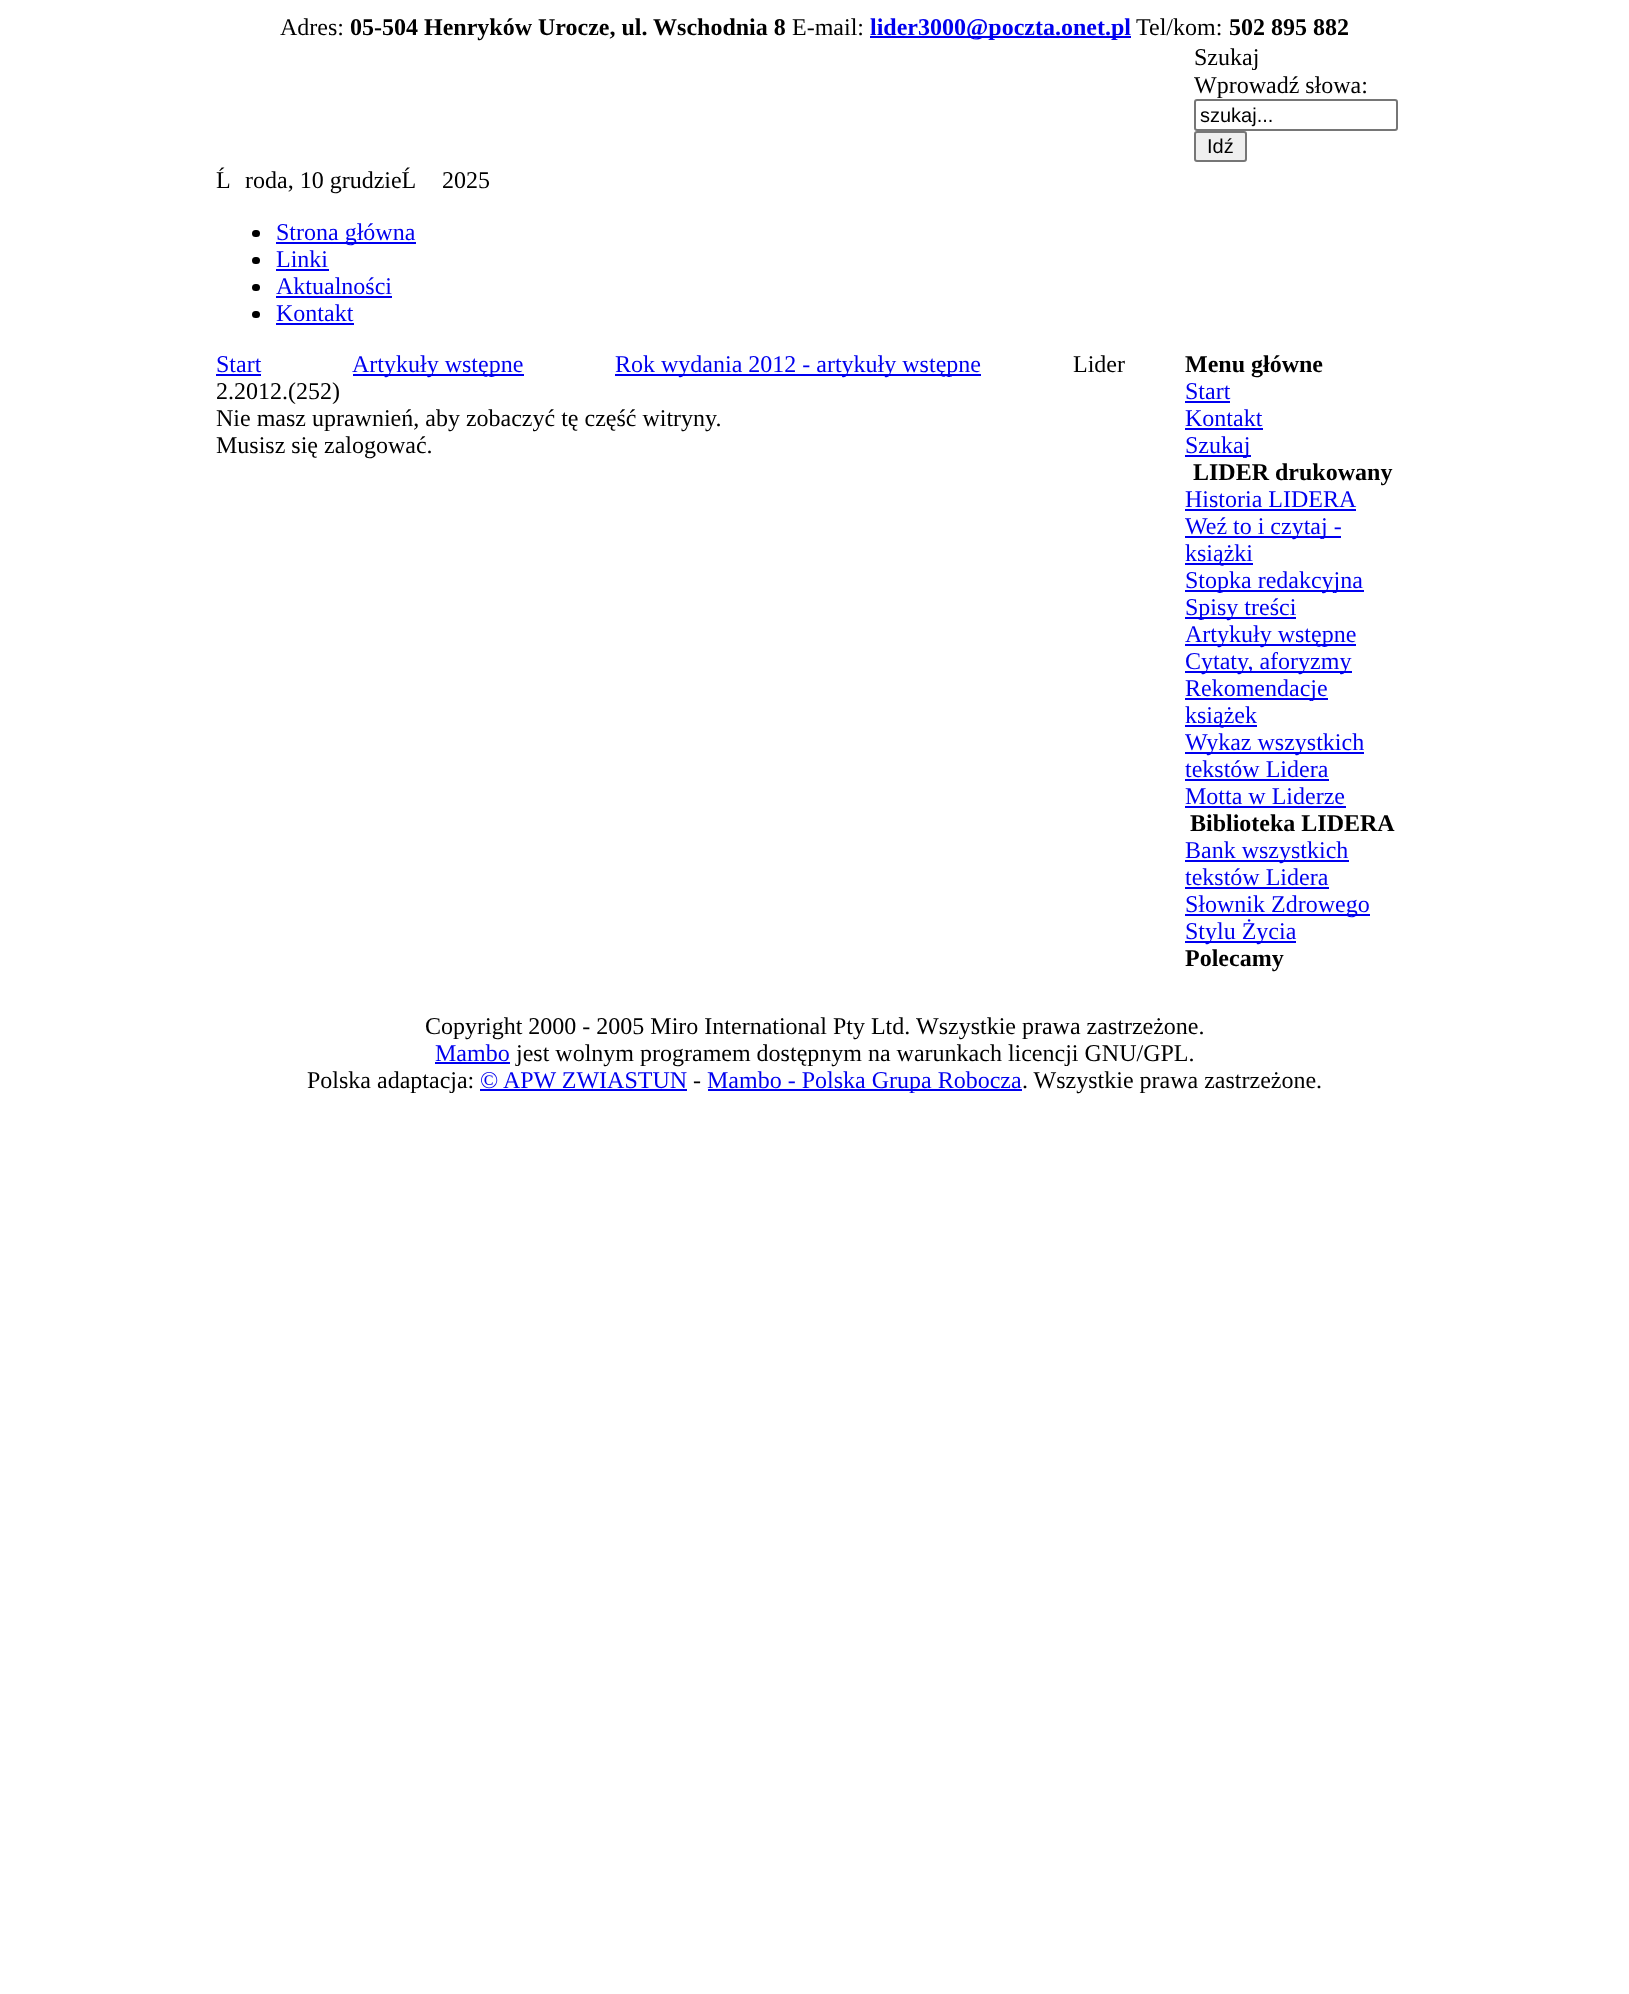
<!DOCTYPE html>
<meta charset="utf-8">
<style>body { margin: 0 } canvas { display: block }</style>
<canvas id="canvas" width="1629" height="1994"></canvas>
<script>
window.onload = function () {
    const canvas = document.getElementById('canvas');
    const context = canvas.getContext('2d');
    context.miterLimit = 4;
    context.fontKerning = 'normal';

    context.fillStyle = 'rgb(255, 255, 255)';
    context.fillRect(0, 0, 1629, 1994);
    context.fillStyle = 'rgb(0, 0, 238)';
    context.fillRect(870, 36, 261, 2);
    context.beginPath();
    context.roundRect(1195, 100, 202, 30, 2);
    context.strokeStyle = 'rgb(118, 118, 118)';
    context.lineWidth = 2;
    context.stroke();
    context.fillStyle = 'rgb(239, 239, 239)';
    context.beginPath();
    context.roundRect(1195, 132, 51, 29, 2);
    context.fill();
    context.stroke();
    context.fillStyle = 'rgb(0, 0, 0)';
    context.beginPath();
    context.roundRect(252, 230, 8, 7, 3.5);
    context.fill();
    context.fillStyle = 'rgb(0, 0, 238)';
    context.fillRect(276, 242, 140, 2);
    context.fillStyle = 'rgb(0, 0, 0)';
    context.beginPath();
    context.roundRect(252, 257, 8, 7, 3.5);
    context.fill();
    context.fillStyle = 'rgb(0, 0, 238)';
    context.fillRect(276, 269, 53, 2);
    context.fillStyle = 'rgb(0, 0, 0)';
    context.beginPath();
    context.roundRect(252, 284, 8, 7, 3.5);
    context.fill();
    context.fillStyle = 'rgb(0, 0, 238)';
    context.fillRect(276, 296, 116, 2);
    context.fillStyle = 'rgb(0, 0, 0)';
    context.beginPath();
    context.roundRect(252, 311, 8, 7, 3.5);
    context.fill();
    context.fillStyle = 'rgb(0, 0, 238)';
    context.fillRect(276, 323, 78, 2);
    context.fillRect(216, 374, 45, 2);
    context.fillRect(353, 374, 171, 2);
    context.fillRect(615, 374, 366, 2);
    context.fillRect(1185, 401, 45, 2);
    context.fillRect(1185, 428, 78, 2);
    context.fillRect(1185, 455, 66, 2);
    context.fillRect(1185, 509, 171, 2);
    context.fillRect(1185, 536, 156, 2);
    context.fillRect(1185, 563, 68, 2);
    context.fillRect(1185, 590, 179, 2);
    context.fillRect(1185, 617, 111, 2);
    context.fillRect(1185, 644, 171, 2);
    context.fillRect(1185, 671, 167, 2);
    context.fillRect(1185, 698, 143, 2);
    context.fillRect(1185, 725, 72, 2);
    context.fillRect(1185, 752, 179, 2);
    context.fillRect(1185, 779, 144, 2);
    context.fillRect(1185, 806, 161, 2);
    context.fillRect(1185, 860, 164, 2);
    context.fillRect(1185, 887, 144, 2);
    context.fillRect(1185, 914, 185, 2);
    context.fillRect(1185, 941, 111, 2);
    context.fillRect(435, 1062, 75, 2);
    context.fillRect(480, 1089, 207, 2);
    context.fillRect(708, 1089, 314, 2);
    context.font = '24px Liberation Serif';
    context.fillStyle = 'rgb(0, 0, 0)';
    context.fillText('Adres:', 280, 35);
    context.font = 'bold 24px Liberation Serif';
    context.fillText('05-504 Henryków Urocze, ul. Wschodnia 8', 350, 35);
    context.font = '24px Liberation Serif';
    context.fillText('E-mail:', 792, 35);
    context.font = 'bold 24px Liberation Serif';
    context.fillStyle = 'rgb(0, 0, 238)';
    context.fillText('lider3000@poczta.onet.pl', 870, 35);
    context.font = '24px Liberation Serif';
    context.fillStyle = 'rgb(0, 0, 0)';
    context.fillText('Tel/kom:', 1136, 35);
    context.font = 'bold 24px Liberation Serif';
    context.fillText('502 895 882', 1229, 35);
    context.font = '24px Liberation Serif';
    context.fillText('Szukaj', 1194, 65);
    context.fillText('Wprowadź słowa:', 1194, 93);
    context.font = '20px Liberation Sans';
    context.fillText('szukaj...', 1200, 122);
    context.fillText('Idź', 1207, 153);
    context.font = '24px Liberation Serif';
    context.fillText('Ĺ', 216, 188);
    context.fillText('roda, 10 grudzieĹ', 245, 188);
    context.fillText('2025', 442, 188);
    context.fillStyle = 'rgb(0, 0, 238)';
    context.fillText('Strona główna', 276, 240);
    context.fillText('Linki', 276, 267);
    context.fillText('Aktualności', 276, 294);
    context.fillText('Kontakt', 276, 321);
    context.fillText('Start', 216, 372);
    context.fillText('Artykuły wstępne', 352, 372);
    context.fillText('Rok wydania 2012 - artykuły wstępne', 615, 372);
    context.fillStyle = 'rgb(0, 0, 0)';
    context.fillText('Lider', 1073, 372);
    context.fillText('2.2012.(252)', 216, 399);
    context.fillText('Nie masz uprawnień, aby zobaczyć tę część witryny.', 216, 426);
    context.fillText('Musisz się zalogować.', 216, 453);
    context.font = 'bold 24px Liberation Serif';
    context.fillText('Menu główne', 1185, 372);
    context.font = '24px Liberation Serif';
    context.fillStyle = 'rgb(0, 0, 238)';
    context.fillText('Start', 1185, 399);
    context.fillText('Kontakt', 1185, 426);
    context.fillText('Szukaj', 1185, 453);
    context.font = 'bold 24px Liberation Serif';
    context.fillStyle = 'rgb(0, 0, 0)';
    context.fillText('LIDER drukowany', 1193, 480);
    context.font = '24px Liberation Serif';
    context.fillStyle = 'rgb(0, 0, 238)';
    context.fillText('Historia LIDERA', 1185, 507);
    context.fillText('Weź to i czytaj -', 1185, 534);
    context.fillText('książki', 1185, 561);
    context.fillText('Stopka redakcyjna', 1185, 588);
    context.fillText('Spisy treści', 1185, 615);
    context.fillText('Artykuły wstępne', 1185, 642);
    context.fillText('Cytaty, aforyzmy', 1185, 669);
    context.fillText('Rekomendacje', 1185, 696);
    context.fillText('książek', 1185, 723);
    context.fillText('Wykaz wszystkich', 1185, 750);
    context.fillText('tekstów Lidera', 1185, 777);
    context.fillText('Motta w Liderze', 1185, 804);
    context.font = 'bold 24px Liberation Serif';
    context.fillStyle = 'rgb(0, 0, 0)';
    context.fillText('Biblioteka LIDERA', 1190, 831);
    context.font = '24px Liberation Serif';
    context.fillStyle = 'rgb(0, 0, 238)';
    context.fillText('Bank wszystkich', 1185, 858);
    context.fillText('tekstów Lidera', 1185, 885);
    context.fillText('Słownik Zdrowego', 1185, 912);
    context.fillText('Stylu Życia', 1185, 939);
    context.font = 'bold 24px Liberation Serif';
    context.fillStyle = 'rgb(0, 0, 0)';
    context.fillText('Polecamy', 1185, 966);
    context.font = '24px Liberation Serif';
    context.fillText('Copyright 2000 - 2005 Miro International Pty Ltd.', 425, 1034);
    context.fillText('Wszystkie prawa zastrzeżone.', 916, 1034);
    context.fillStyle = 'rgb(0, 0, 238)';
    context.fillText('Mambo', 435, 1061);
    context.fillStyle = 'rgb(0, 0, 0)';
    context.fillText('jest wolnym programem dostępnym na warunkach licencji GNU/GPL.', 516, 1061);
    context.fillText('Polska adaptacja:', 307, 1088);
    context.fillStyle = 'rgb(0, 0, 238)';
    context.fillText('© APW ZWIASTUN', 480, 1088);
    context.fillStyle = 'rgb(0, 0, 0)';
    context.fillText('-', 693, 1088);
    context.fillStyle = 'rgb(0, 0, 238)';
    context.fillText('Mambo - Polska Grupa Robocza', 707, 1088);
    context.fillStyle = 'rgb(0, 0, 0)';
    context.fillText('. Wszystkie prawa zastrzeżone.', 1022, 1088);
};
</script>
